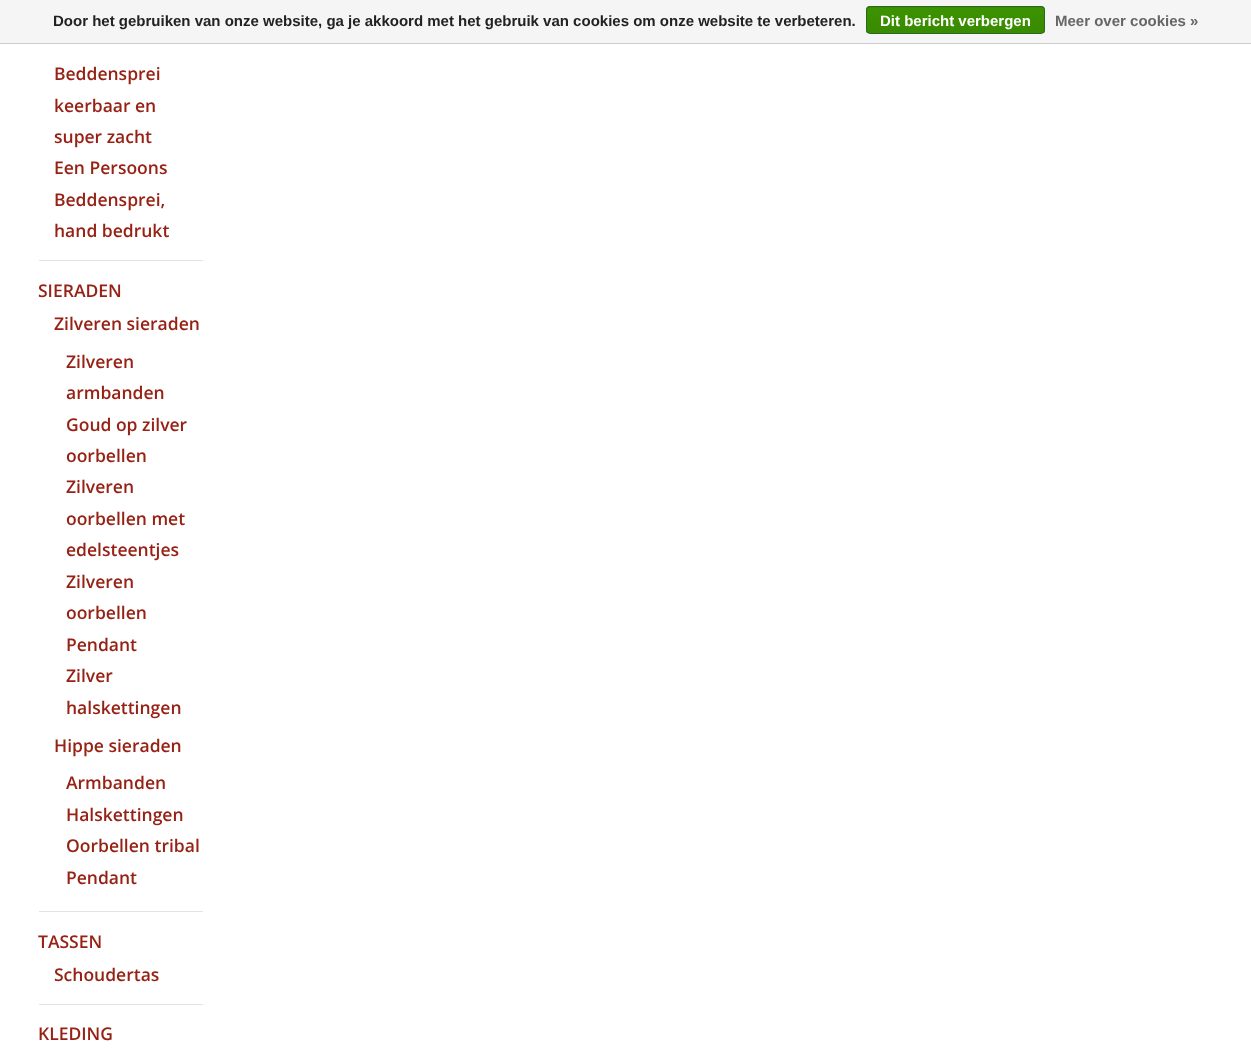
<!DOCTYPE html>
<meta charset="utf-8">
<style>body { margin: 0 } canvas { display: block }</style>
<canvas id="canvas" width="1251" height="1050"></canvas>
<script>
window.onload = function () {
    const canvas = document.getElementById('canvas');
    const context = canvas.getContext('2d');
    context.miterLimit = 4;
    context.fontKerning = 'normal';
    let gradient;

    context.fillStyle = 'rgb(255, 255, 255)';
    context.fillRect(0, 0, 1251, 1050);
    context.fillStyle = 'rgb(245, 245, 245)';
    context.fillRect(0, 0, 1251, 43);
    context.fillStyle = 'rgb(204, 204, 204)';
    context.fillRect(0, 43, 1251, 1);
    context.save();
    context.beginPath();
    context.roundRect(866, 6, 179, 28, 4);
    context.clip();
    gradient = context.createLinearGradient(956, -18, 956, 7.5);
    gradient.addColorStop(0, 'rgb(60, 147, 0)');
    gradient.addColorStop(1, 'rgb(57, 138, 0)');
    context.fillStyle = gradient;
    context.fillRect(866, 6, 179, 2);
    gradient = context.createLinearGradient(956, 7.5, 956, 33);
    gradient.addColorStop(0, 'rgb(60, 147, 0)');
    gradient.addColorStop(1, 'rgb(57, 138, 0)');
    context.fillStyle = gradient;
    context.fillRect(866, 8, 179, 25);
    context.restore();
    context.beginPath();
    context.roundRect(866.5, 6.5, 178, 27, 3.5);
    context.strokeStyle = 'rgb(41, 105, 29)';
    context.stroke();
    context.fillStyle = 'rgb(227, 227, 227)';
    context.fillRect(39, 260, 164, 1);
    context.fillRect(39, 911, 164, 1);
    context.fillRect(39, 1004, 164, 1);
    context.font = 'bold 15px Liberation Sans';
    context.fillStyle = 'rgb(34, 34, 34)';
    context.fillText('Door het gebruiken van onze website, ga je akkoord met het gebruik van cookies om onze website te verbeteren.', 53, 26);
    context.fillStyle = 'rgb(255, 255, 255)';
    context.fillText('Dit bericht verbergen', 880, 26);
    context.fillStyle = 'rgb(102, 102, 102)';
    context.fillText('Meer over cookies »', 1055, 26);
    context.font = '600 17.5px Open Sans';
    context.fillStyle = 'rgb(150, 34, 21)';
    context.fillText('Beddensprei', 54, 80);
    context.fillText('keerbaar en', 54, 112);
    context.fillText('super zacht', 54, 143);
    context.fillText('Een Persoons', 54, 174);
    context.fillText('Beddensprei,', 54, 206);
    context.fillText('hand bedrukt', 54, 237);
    context.fillText('SIERADEN', 38, 297);
    context.fillText('Zilveren sieraden', 54, 330);
    context.fillText('Zilveren', 66, 368);
    context.fillText('armbanden', 66, 399);
    context.fillText('Goud op zilver', 66, 431);
    context.fillText('oorbellen', 66, 462);
    context.fillText('Zilveren', 66, 493);
    context.fillText('oorbellen met', 66, 525);
    context.fillText('edelsteentjes', 66, 556);
    context.fillText('Zilveren', 66, 588);
    context.fillText('oorbellen', 66, 619);
    context.fillText('Pendant', 66, 651);
    context.fillText('Zilver', 66, 682);
    context.fillText('halskettingen', 66, 714);
    context.fillText('Hippe sieraden', 54, 752);
    context.fillText('Armbanden', 66, 789);
    context.fillText('Halskettingen', 66, 821);
    context.fillText('Oorbellen tribal', 66, 852);
    context.fillText('Pendant', 66, 884);
    context.fillText('TASSEN', 38, 948);
    context.fillText('Schoudertas', 54, 981);
    context.fillText('KLEDING', 38, 1040);
};
</script>
